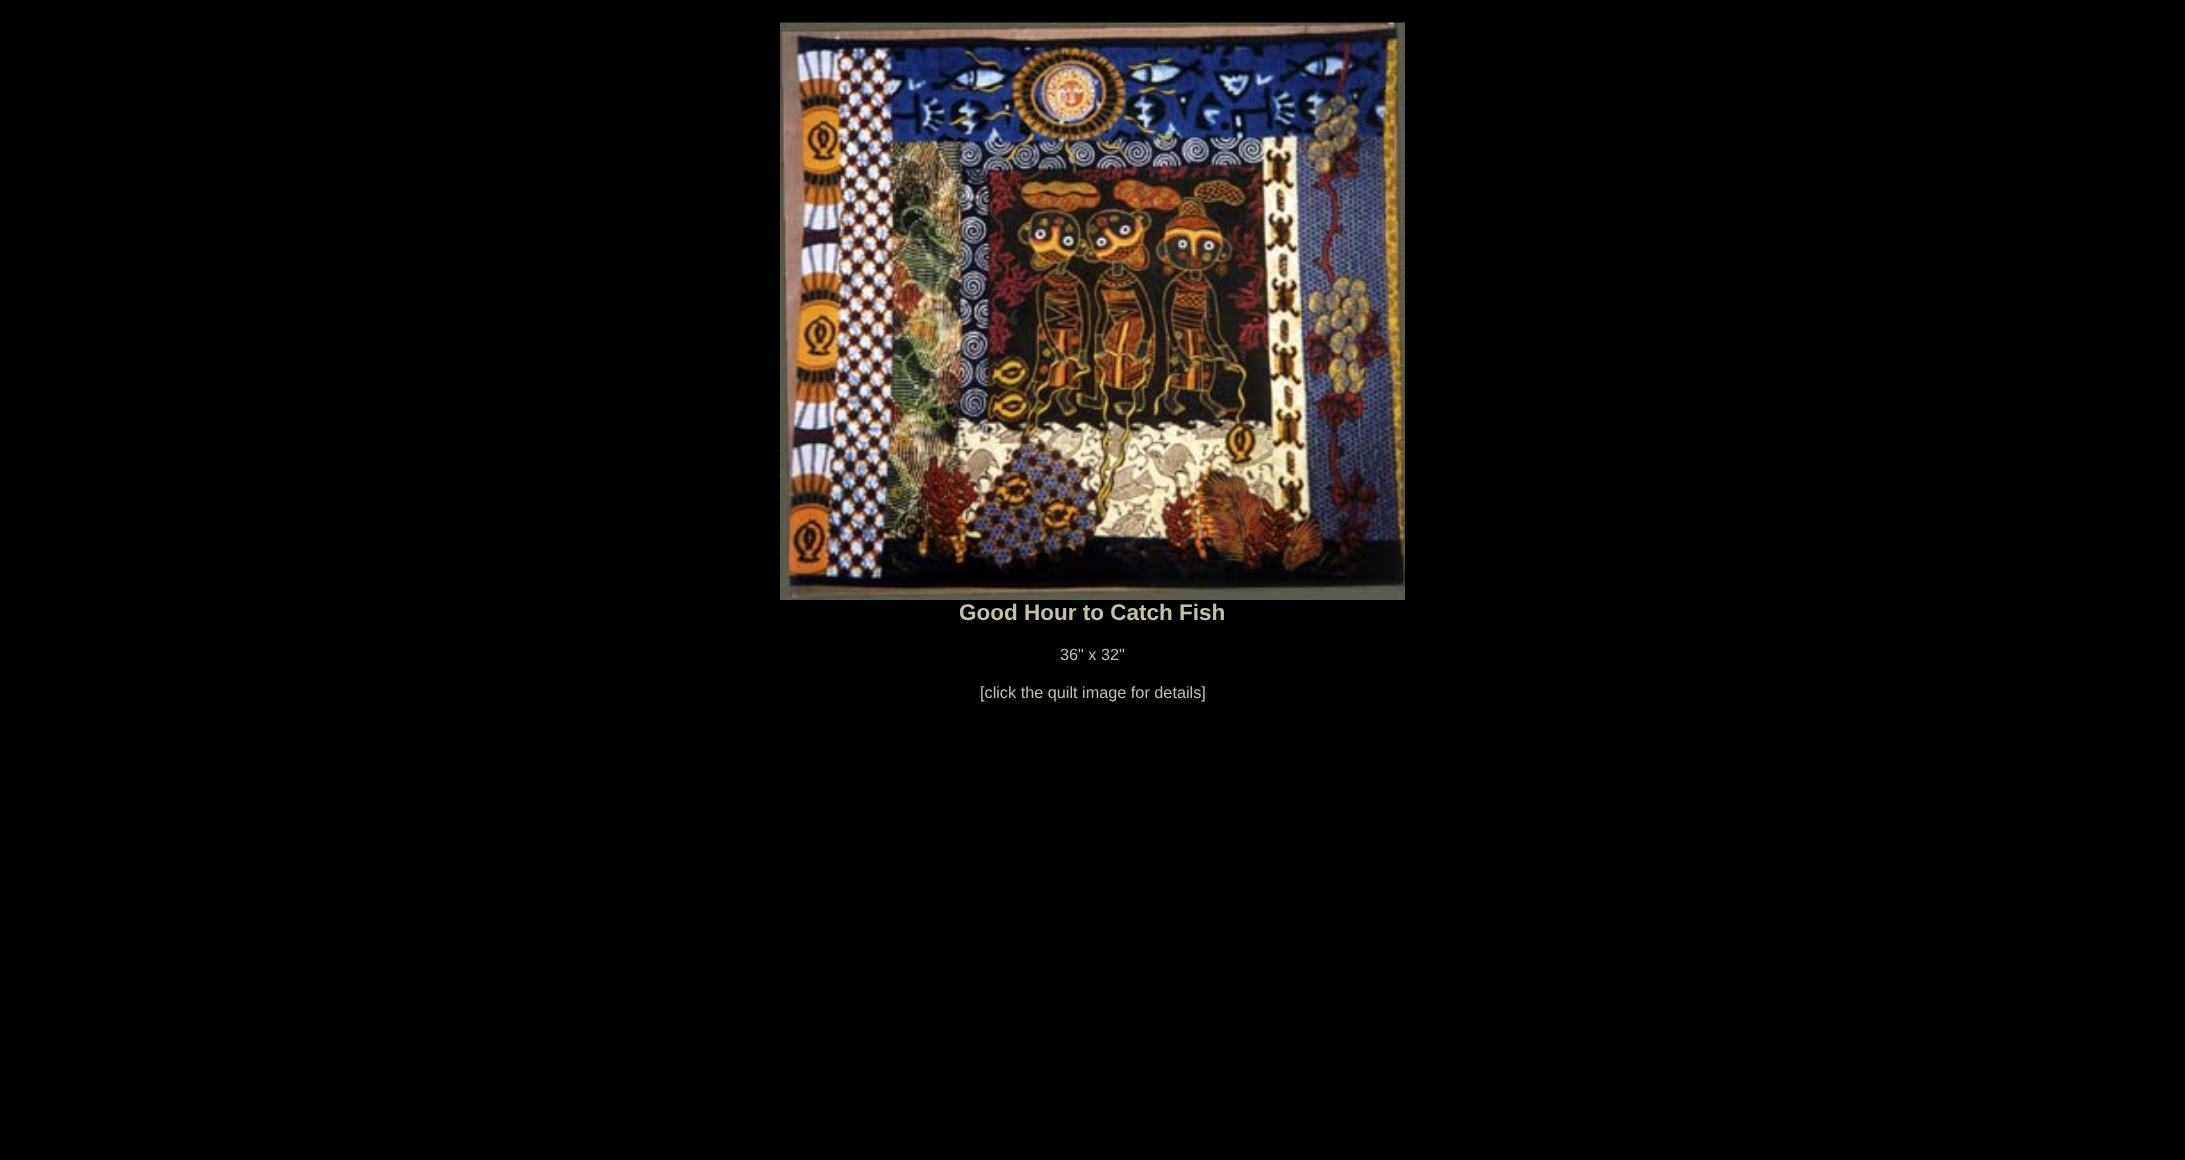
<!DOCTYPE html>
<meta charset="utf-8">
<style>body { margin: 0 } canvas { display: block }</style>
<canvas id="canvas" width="2185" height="1160"></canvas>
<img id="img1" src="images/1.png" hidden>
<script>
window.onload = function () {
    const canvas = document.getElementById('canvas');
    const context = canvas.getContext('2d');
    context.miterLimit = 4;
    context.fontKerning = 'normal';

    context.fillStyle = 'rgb(0, 0, 0)';
    context.fillRect(0, 0, 2185, 1160);
    context.drawImage(document.getElementById('img1'), 780, 22, 625, 578);
    context.font = 'bold 22.5px Liberation Sans';
    context.fillStyle = 'rgb(196, 193, 168)';
    context.fillText('Good Hour to Catch Fish', 959, 620);
    context.font = '16.25px Liberation Sans';
    context.fillText('36" x 32"', 1060, 660);
    context.fillText('[click the quilt image for details]', 980, 698);
};
</script>
